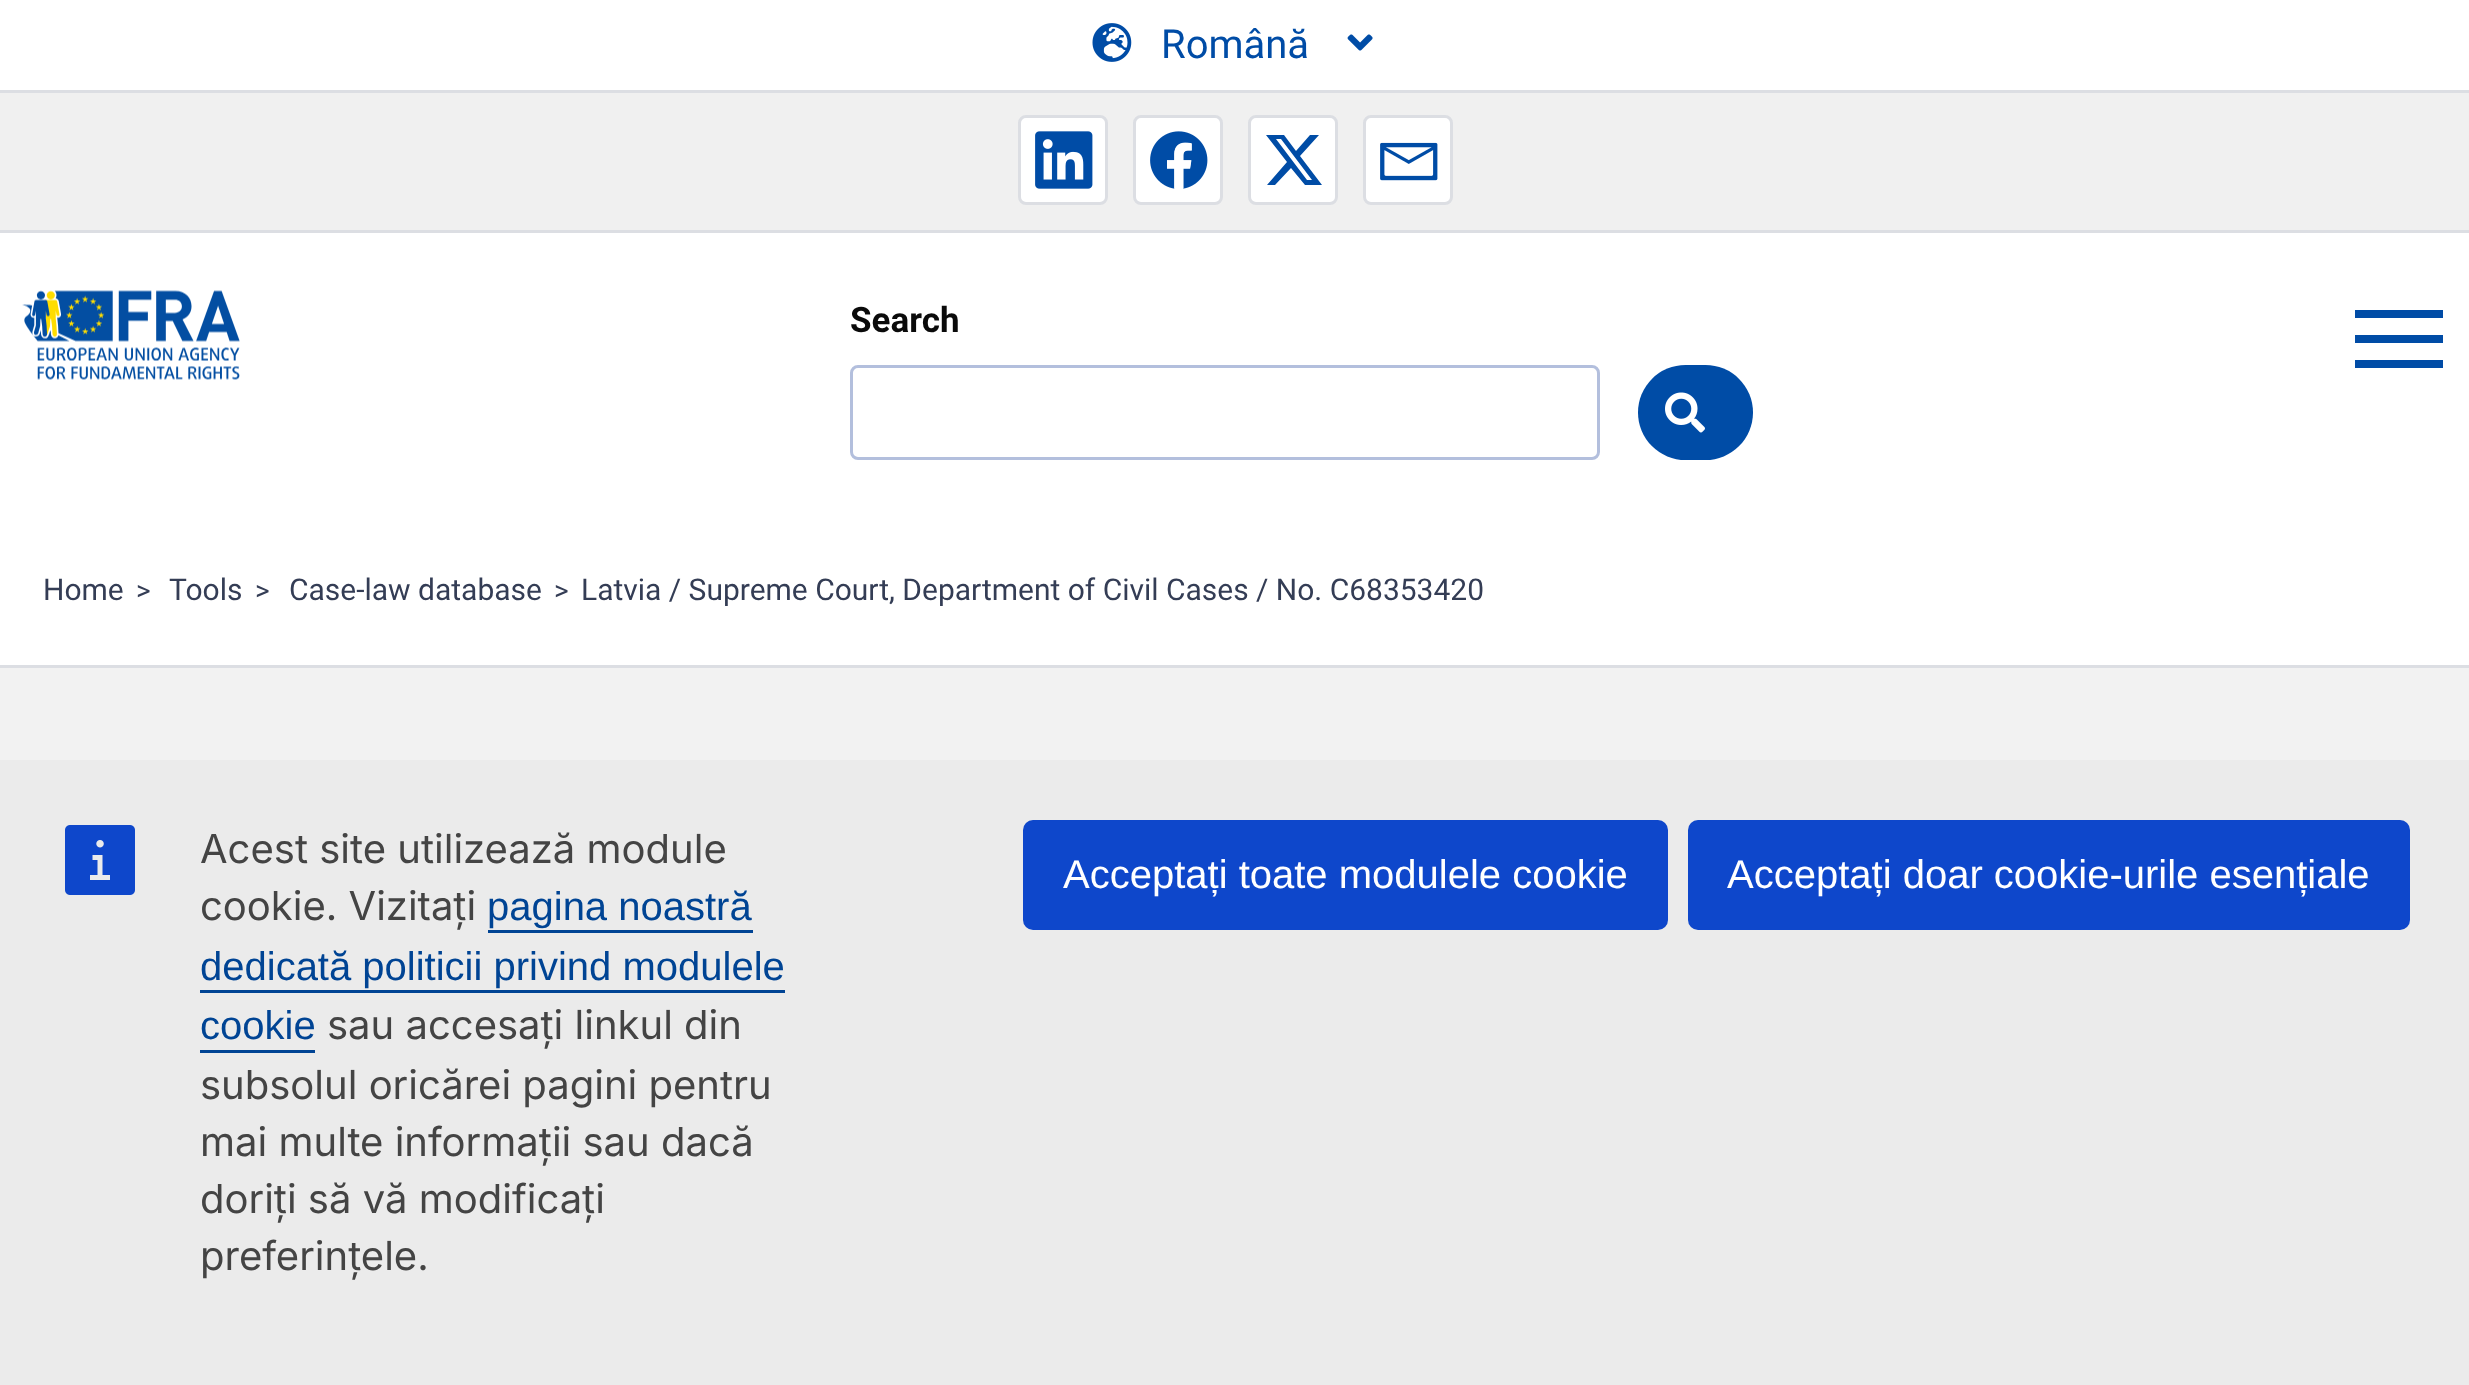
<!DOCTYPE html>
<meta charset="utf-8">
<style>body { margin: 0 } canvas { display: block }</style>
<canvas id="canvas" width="2469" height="1385"></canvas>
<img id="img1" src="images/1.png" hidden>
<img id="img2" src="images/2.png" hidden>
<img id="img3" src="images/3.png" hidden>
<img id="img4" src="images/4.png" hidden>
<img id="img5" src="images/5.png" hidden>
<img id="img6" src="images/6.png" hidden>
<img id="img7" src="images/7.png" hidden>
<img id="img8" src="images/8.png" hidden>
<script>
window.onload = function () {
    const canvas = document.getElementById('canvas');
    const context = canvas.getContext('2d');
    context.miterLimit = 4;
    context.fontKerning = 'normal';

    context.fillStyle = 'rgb(255, 255, 255)';
    context.fillRect(0, 0, 2469, 1385);
    context.fillStyle = 'rgb(220, 222, 227)';
    context.fillRect(0, 90, 2469, 3);
    context.drawImage(document.getElementById('img1'), 1092, 23, 40, 39);
    context.drawImage(document.getElementById('img2'), 1347, 34, 26, 17);
    context.fillStyle = 'rgb(240, 240, 240)';
    context.fillRect(0, 93, 2469, 137);
    context.fillStyle = 'rgb(220, 222, 227)';
    context.fillRect(0, 230, 2469, 3);
    context.fillStyle = 'rgb(255, 255, 255)';
    context.beginPath();
    context.roundRect(1019.5, 116.5, 87, 87, 6.5);
    context.fill();
    context.strokeStyle = 'rgb(220, 222, 227)';
    context.lineWidth = 3;
    context.stroke();
    context.drawImage(document.getElementById('img3'), 1035, 131, 58, 58);
    context.beginPath();
    context.roundRect(1134.5, 116.5, 87, 87, 6.5);
    context.fill();
    context.stroke();
    context.drawImage(document.getElementById('img4'), 1150, 131, 58, 58);
    context.beginPath();
    context.roundRect(1249.5, 116.5, 87, 87, 6.5);
    context.fill();
    context.stroke();
    context.fillStyle = 'rgb(0, 76, 166)';
    context.beginPath();
    context.moveTo(1310, 135);
    context.lineTo(1319, 135);
    context.lineTo(1300, 156);
    context.lineTo(1322, 185);
    context.lineTo(1305, 185);
    context.lineTo(1291, 168);
    context.lineTo(1275, 185);
    context.lineTo(1267, 185);
    context.lineTo(1287, 162);
    context.lineTo(1266, 135);
    context.lineTo(1284, 135);
    context.lineTo(1296, 151);
    context.closePath();
    context.moveTo(1307, 180);
    context.lineTo(1312, 180);
    context.lineTo(1281, 139);
    context.lineTo(1276, 139);
    context.closePath();
    context.fill();
    context.fillStyle = 'rgb(255, 255, 255)';
    context.beginPath();
    context.roundRect(1364.5, 116.5, 87, 87, 6.5);
    context.fill();
    context.stroke();
    context.drawImage(document.getElementById('img5'), 1380, 142, 58, 39);
    context.drawImage(document.getElementById('img6'), 22, 290, 218, 90);
    context.beginPath();
    context.roundRect(851.5, 366.5, 747, 92, 6.5);
    context.strokeStyle = 'rgb(179, 191, 221)';
    context.stroke();
    context.fillStyle = 'rgb(0, 76, 166)';
    context.beginPath();
    context.roundRect(1638, 365, 115, 95, 47.5);
    context.fill();
    context.drawImage(document.getElementById('img7'), 1665, 392, 40, 41);
    context.fillRect(2355, 360, 88, 8);
    context.fillRect(2355, 335, 88, 8);
    context.fillRect(2355, 310, 88, 8);
    context.fillStyle = 'rgb(220, 222, 227)';
    context.fillRect(0, 665, 2469, 3);
    context.fillStyle = 'rgb(242, 242, 242)';
    context.fillRect(0, 668, 2469, 92);
    context.fillStyle = 'rgb(235, 235, 235)';
    context.fillRect(0, 760, 2469, 625);
    context.drawImage(document.getElementById('img8'), 65, 825, 70, 70);
    context.fillStyle = 'rgb(0, 68, 148)';
    context.fillRect(488, 930, 265, 3);
    context.fillRect(200, 990, 585, 3);
    context.fillRect(200, 1050, 115, 3);
    context.fillStyle = 'rgb(14, 71, 203)';
    context.beginPath();
    context.roundRect(1023, 820, 645, 110, 10);
    context.fill();
    context.beginPath();
    context.roundRect(1688, 820, 722, 110, 10);
    context.fill();
    context.font = '40px Roboto';
    context.fillStyle = 'rgb(0, 76, 166)';
    context.fillText('Română', 1161, 58);
    context.font = 'bold 35px Roboto';
    context.fillStyle = 'rgb(10, 10, 10)';
    context.fillText('Search', 850, 332);
    context.font = '30px Roboto';
    context.fillStyle = 'rgb(52, 61, 85)';
    context.fillText('Home', 43, 600);
    context.font = '28px Roboto';
    context.fillText('>', 136, 600);
    context.font = '30px Roboto';
    context.fillText('Tools', 169, 600);
    context.font = '28px Roboto';
    context.fillText('>', 255, 600);
    context.font = '30px Roboto';
    context.fillText('Case-law database', 289, 600);
    context.font = '28px Roboto';
    context.fillText('>', 554, 600);
    context.font = '30px Roboto';
    context.fillText('Latvia / Supreme Court, Department of Civil Cases / No. C68353420', 581, 600);
    context.font = '40px Inter';
    context.fillStyle = 'rgb(68, 68, 68)';
    context.fillText('Acest site utilizează module', 200, 863);
    context.fillText('cookie. Vizitați', 200, 920);
    context.font = '40px Liberation Sans';
    context.fillStyle = 'rgb(0, 68, 148)';
    context.fillText('pagina noastră', 487, 920);
    context.fillText('dedicată politicii privind modulele', 200, 980);
    context.fillText('cookie', 200, 1039);
    context.font = '40px Inter';
    context.fillStyle = 'rgb(68, 68, 68)';
    context.fillText('sau accesați linkul din', 327, 1039);
    context.fillText('subsolul oricărei pagini pentru', 200, 1099);
    context.fillText('mai multe informații sau dacă', 200, 1156);
    context.fillText('doriți să vă modificați', 200, 1213);
    context.fillText('preferințele.', 200, 1270);
    context.font = '40px Liberation Sans';
    context.fillStyle = 'rgb(255, 255, 255)';
    context.fillText('Acceptați toate modulele cookie', 1063, 888);
    context.fillText('Acceptați doar cookie-urile esențiale', 1727, 888);
};
</script>
